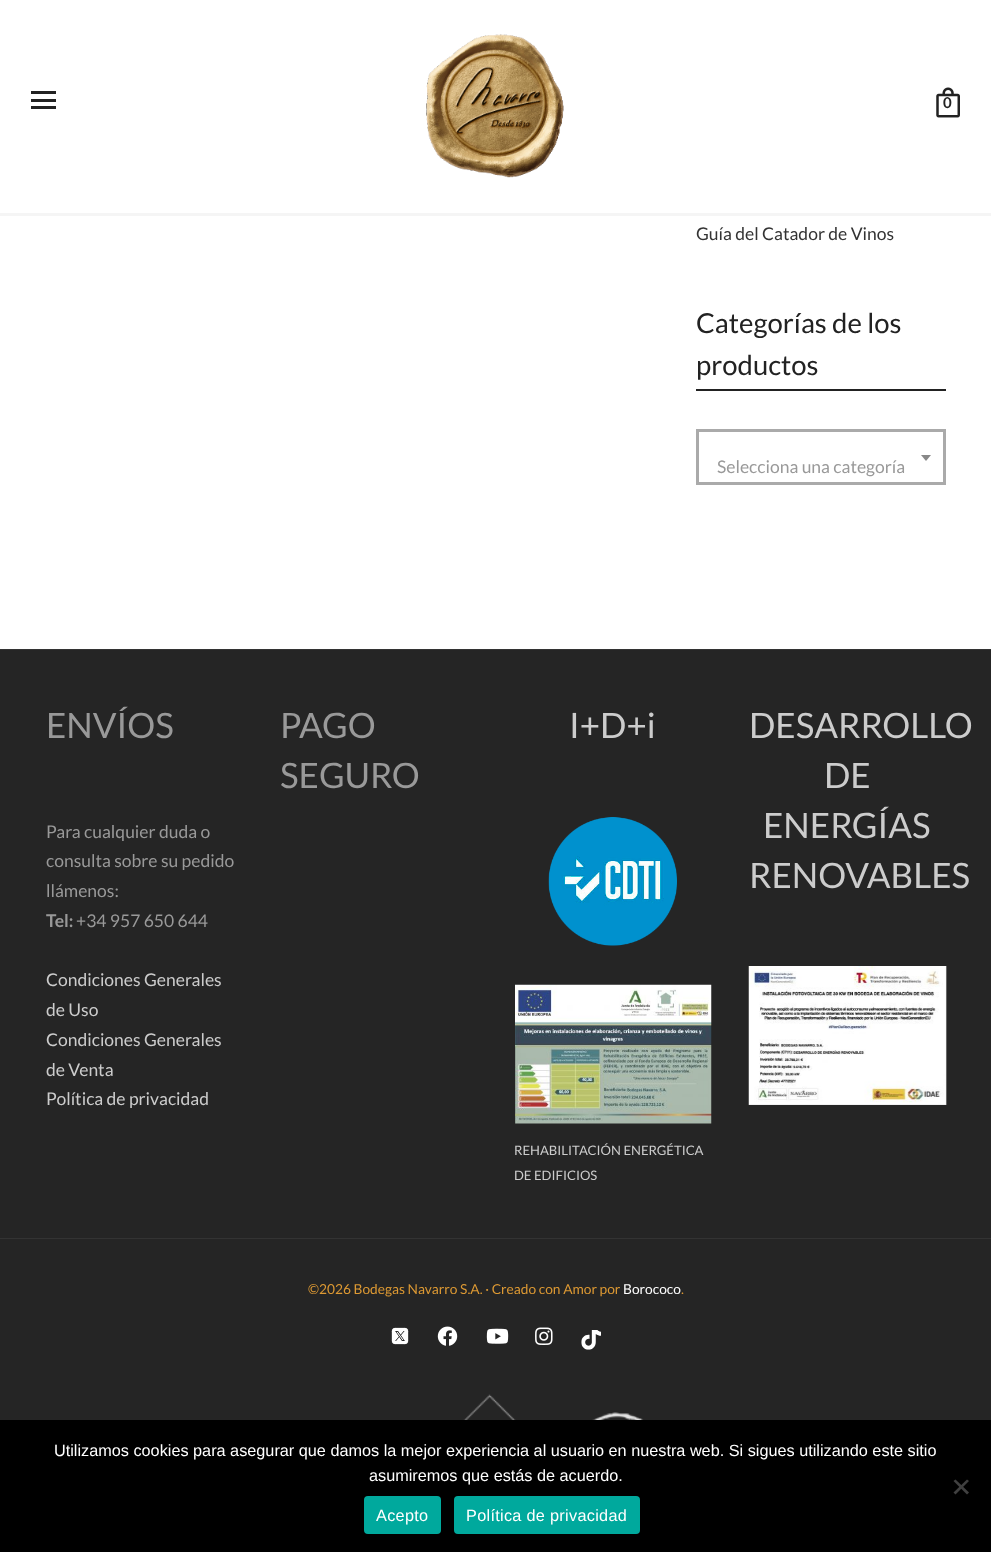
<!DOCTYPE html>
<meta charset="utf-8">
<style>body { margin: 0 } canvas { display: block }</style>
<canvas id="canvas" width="991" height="1552"></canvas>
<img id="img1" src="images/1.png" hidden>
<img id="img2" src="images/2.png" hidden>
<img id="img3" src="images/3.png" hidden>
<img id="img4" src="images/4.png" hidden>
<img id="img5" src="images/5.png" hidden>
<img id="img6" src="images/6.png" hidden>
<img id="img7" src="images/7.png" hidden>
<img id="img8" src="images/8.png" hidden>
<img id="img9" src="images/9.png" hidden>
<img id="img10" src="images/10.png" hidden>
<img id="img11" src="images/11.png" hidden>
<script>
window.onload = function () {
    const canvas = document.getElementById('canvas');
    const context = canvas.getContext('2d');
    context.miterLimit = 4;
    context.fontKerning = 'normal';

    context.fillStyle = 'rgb(255, 255, 255)';
    context.fillRect(0, 0, 991, 1552);
    context.fillStyle = 'rgb(245, 245, 245)';
    context.fillRect(0, 213, 991, 3);
    context.fillStyle = 'rgb(34, 34, 34)';
    context.fillRect(31, 99, 25, 3);
    context.fillRect(31, 91, 25, 3);
    context.fillRect(31, 106, 25, 3);
    context.drawImage(document.getElementById('img1'), 426, 34, 138, 144);
    context.drawImage(document.getElementById('img2'), 936, 87, 24, 31);
    context.fillRect(696, 389, 250, 2);
    context.strokeStyle = 'rgb(170, 170, 170)';
    context.lineWidth = 3;
    context.strokeRect(697.5, 430.5, 247, 53);
    context.fillStyle = 'rgb(136, 136, 136)';
    context.beginPath();
    context.moveTo(921, 455);
    context.lineTo(931, 455);
    context.lineTo(926, 461);
    context.closePath();
    context.fill();
    context.fillStyle = 'rgb(37, 37, 37)';
    context.fillRect(0, 650, 991, 588);
    context.fillStyle = 'rgb(51, 51, 51)';
    context.fillRect(0, 649, 991, 1);
    context.drawImage(document.getElementById('img3'), 548, 817, 129, 129);
    context.drawImage(document.getElementById('img4'), 515, 984, 197, 140);
    context.drawImage(document.getElementById('img5'), 748, 966, 199, 139);
    context.fillStyle = 'rgb(37, 37, 37)';
    context.fillRect(0, 1239, 991, 181);
    context.fillStyle = 'rgb(51, 51, 51)';
    context.fillRect(0, 1238, 991, 1);
    context.drawImage(document.getElementById('img6'), 391, 1327, 18, 18);
    context.drawImage(document.getElementById('img7'), 437, 1326, 21, 20);
    context.drawImage(document.getElementById('img8'), 486, 1328, 23, 16);
    context.drawImage(document.getElementById('img9'), 535, 1327, 18, 18);
    context.drawImage(document.getElementById('img10'), 581, 1330, 20, 20);
    context.drawImage(document.getElementById('img11'), 463, 1394, 181, 26);
    context.fillStyle = 'rgb(0, 0, 0)';
    context.fillRect(0, 1420, 991, 132);
    context.fillStyle = 'rgb(64, 64, 64)';
    context.beginPath();
    context.moveTo(967, 1479.5);
    context.lineTo(969, 1481);
    context.lineTo(955.5, 1494.5);
    context.lineTo(953.5, 1492.5);
    context.closePath();
    context.fill();
    context.beginPath();
    context.moveTo(953.5, 1481);
    context.lineTo(955.5, 1479.5);
    context.lineTo(969, 1492.5);
    context.lineTo(967, 1494.5);
    context.closePath();
    context.fill();
    context.fillStyle = 'rgb(0, 169, 157)';
    context.beginPath();
    context.roundRect(364, 1496, 77, 38, 4);
    context.fill();
    context.beginPath();
    context.roundRect(454, 1496, 186, 38, 4);
    context.fill();
    context.font = 'bold 15px Lato';
    context.fillStyle = 'rgb(34, 34, 34)';
    context.fillText('0', 943, 108);
    context.font = '17.5px Lato';
    context.fillStyle = 'rgb(51, 51, 51)';
    context.fillText('Guía del Catador de Vinos', 696, 240);
    context.font = '27.5px Lato';
    context.fillStyle = 'rgb(34, 34, 34)';
    context.fillText('Categorías de los', 696, 333);
    context.fillText('productos', 696, 375);
    context.font = '17.5px Lato';
    context.fillStyle = 'rgb(153, 153, 153)';
    context.fillText('Selecciona una categoría', 717, 473);
    context.font = '35px Lato';
    context.fillText('ENVÍOS', 46, 738);
    context.font = '17.5px Lato';
    context.fillText('Para cualquier duda o', 46, 838);
    context.fillText('consulta sobre su pedido', 46, 867);
    context.fillText('llámenos:', 46, 897);
    context.font = 'bold 17.5px Lato';
    context.fillText('Tel:', 46, 927);
    context.font = '17.5px Lato';
    context.fillText('+34 957 650 644', 76, 927);
    context.fillStyle = 'rgb(204, 204, 204)';
    context.fillText('Condiciones Generales', 46, 986);
    context.fillText('de Uso', 46, 1016);
    context.fillText('Condiciones Generales', 46, 1046);
    context.fillText('de Venta', 46, 1076);
    context.fillText('Política de privacidad', 46, 1105);
    context.font = '35px Lato';
    context.fillStyle = 'rgb(153, 153, 153)';
    context.fillText('PAGO', 280, 738);
    context.fillText('SEGURO', 280, 788);
    context.fillStyle = 'rgb(204, 204, 204)';
    context.fillText('I+D+i', 569, 738);
    context.font = '13.1px Lato';
    context.fillText('REHABILITACIÓN ENERGÉTICA', 514, 1155);
    context.fillText('DE EDIFICIOS', 514, 1180);
    context.font = '35px Lato';
    context.fillText('DESARROLLO', 749, 738);
    context.fillText('DE', 824, 788);
    context.fillText('ENERGÍAS', 763, 838);
    context.fillText('RENOVABLES', 749, 888);
    context.font = '13.75px Lato';
    context.fillStyle = 'rgb(221, 153, 51)';
    context.fillText('©2026 Bodegas Navarro S.A. · Creado con Amor por', 308, 1294);
    context.fillStyle = 'rgb(255, 255, 255)';
    context.fillText('Borococo', 623, 1294);
    context.fillStyle = 'rgb(221, 153, 51)';
    context.fillText('.', 681, 1294);
    context.font = '16.25px Liberation Sans';
    context.fillStyle = 'rgb(255, 255, 255)';
    context.fillText('Utilizamos cookies para asegurar que damos la mejor experiencia al usuario en nuestra web. Si sigues utilizando este sitio', 54, 1456);
    context.fillText('asumiremos que estás de acuerdo.', 369, 1481);
    context.letterSpacing = '0.3px';
    context.fillText('Acepto', 376, 1521);
    context.fillText('Política de privacidad', 466, 1521);
};
</script>
